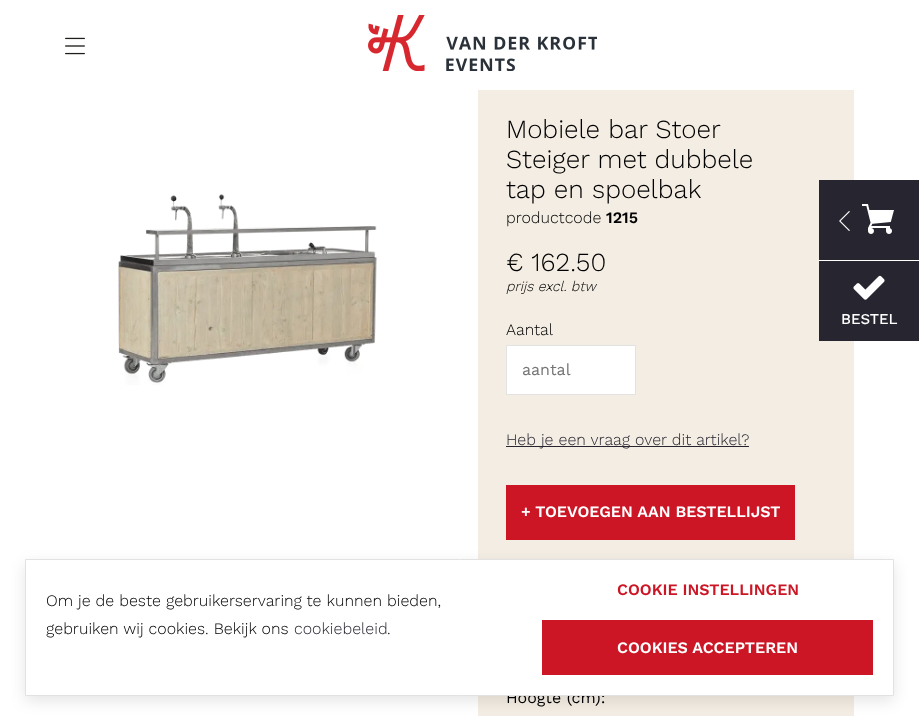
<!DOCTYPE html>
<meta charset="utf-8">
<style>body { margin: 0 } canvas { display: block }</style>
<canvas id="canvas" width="919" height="716"></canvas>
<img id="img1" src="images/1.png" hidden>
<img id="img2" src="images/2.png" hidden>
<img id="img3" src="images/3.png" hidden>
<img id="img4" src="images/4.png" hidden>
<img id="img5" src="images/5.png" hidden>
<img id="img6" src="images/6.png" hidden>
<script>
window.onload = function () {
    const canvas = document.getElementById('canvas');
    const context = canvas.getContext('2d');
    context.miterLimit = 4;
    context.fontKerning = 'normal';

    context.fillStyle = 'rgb(255, 255, 255)';
    context.fillRect(0, 0, 919, 716);
    context.drawImage(document.getElementById('img1'), 118, 194, 260, 191);
    context.fillStyle = 'rgb(244, 237, 227)';
    context.fillRect(478, 90, 376, 626);
    context.fillStyle = 'rgb(255, 255, 255)';
    context.beginPath();
    context.rect(506.5, 345.5, 129, 49);
    context.fill();
    context.strokeStyle = 'rgb(226, 226, 226)';
    context.stroke();
    context.fillStyle = 'rgb(39, 37, 48)';
    context.fillRect(506, 446, 243, 1);
    context.fillStyle = 'rgb(205, 22, 37)';
    context.fillRect(506, 485, 289, 55);
    context.drawImage(document.getElementById('img2'), 65, 37, 20, 18);
    context.drawImage(document.getElementById('img3'), 368, 15, 229, 56);
    context.fillStyle = 'rgb(39, 37, 48)';
    context.fillRect(819, 180, 100, 80);
    context.drawImage(document.getElementById('img4'), 839, 211, 11, 20);
    context.drawImage(document.getElementById('img5'), 862, 204, 32, 30);
    context.fillRect(819, 261, 100, 80);
    context.fillStyle = 'rgb(255, 255, 255)';
    context.fillRect(819, 260, 35, 1);
    context.drawImage(document.getElementById('img6'), 853, 275, 32, 25);
    context.fillStyle = 'rgba(0, 0, 0, 0.1)';
    context.filter = 'blur(7.5px)';
    context.beginPath();
    context.rect(25, 564, 869, 137);
    context.fill();
    context.filter = 'none';
    context.font = '300 26px Work Sans';
    context.fillStyle = 'rgb(0, 0, 0)';
    context.fillText('Mobiele bar Stoer', 506, 138);
    context.fillText('Steiger met dubbele', 506, 168);
    context.fillText('tap en spoelbak', 506, 198);
    context.font = '300 16px Work Sans';
    context.fillText('productcode', 506, 223);
    context.font = '600 16px Work Sans';
    context.fillText('1215', 606, 223);
    context.font = '300 26px Work Sans';
    context.fillText('€ 162.50', 506, 271);
    context.font = 'italic 300 14px Work Sans';
    context.fillText('prijs excl. btw', 506, 291);
    context.font = '300 16px Work Sans';
    context.fillText('Aantal', 506, 335);
    context.font = '16px Work Sans';
    context.fillStyle = 'rgb(117, 117, 117)';
    context.fillText('aantal', 522, 375);
    context.font = '300 16px Work Sans';
    context.fillStyle = 'rgb(39, 37, 48)';
    context.fillText('Heb je een vraag over dit artikel?', 506, 445);
    context.font = '600 16px Work Sans';
    context.fillStyle = 'rgb(255, 255, 255)';
    context.fillText('+ TOEVOEGEN AAN BESTELLIJST', 521, 517);
    context.font = '16px Work Sans';
    context.fillStyle = 'rgb(0, 0, 0)';
    context.fillText('Hoogte (cm):', 506, 703);
    context.font = '500 15px Work Sans';
    context.fillStyle = 'rgb(255, 255, 255)';
    context.fillText('BESTEL', 841, 324);
    context.beginPath();
    context.rect(25.5, 559.5, 868, 136);
    context.fill();
    context.stroke();
    context.font = '300 16px Work Sans';
    context.fillStyle = 'rgb(0, 0, 0)';
    context.fillText('Om je de beste gebruikerservaring te kunnen bieden,', 46, 606);
    context.fillText('gebruiken wij cookies. Bekijk ons', 46, 634);
    context.fillStyle = 'rgb(39, 37, 48)';
    context.fillText('cookiebeleid', 294, 634);
    context.fillStyle = 'rgb(0, 0, 0)';
    context.fillText('.', 387, 634);
    context.font = '600 16px Work Sans';
    context.fillStyle = 'rgb(205, 22, 37)';
    context.fillText('COOKIE INSTELLINGEN', 617, 595);
    context.fillRect(542, 620, 331, 55);
    context.fillStyle = 'rgb(255, 255, 255)';
    context.fillText('COOKIES ACCEPTEREN', 617, 653);
};
</script>
